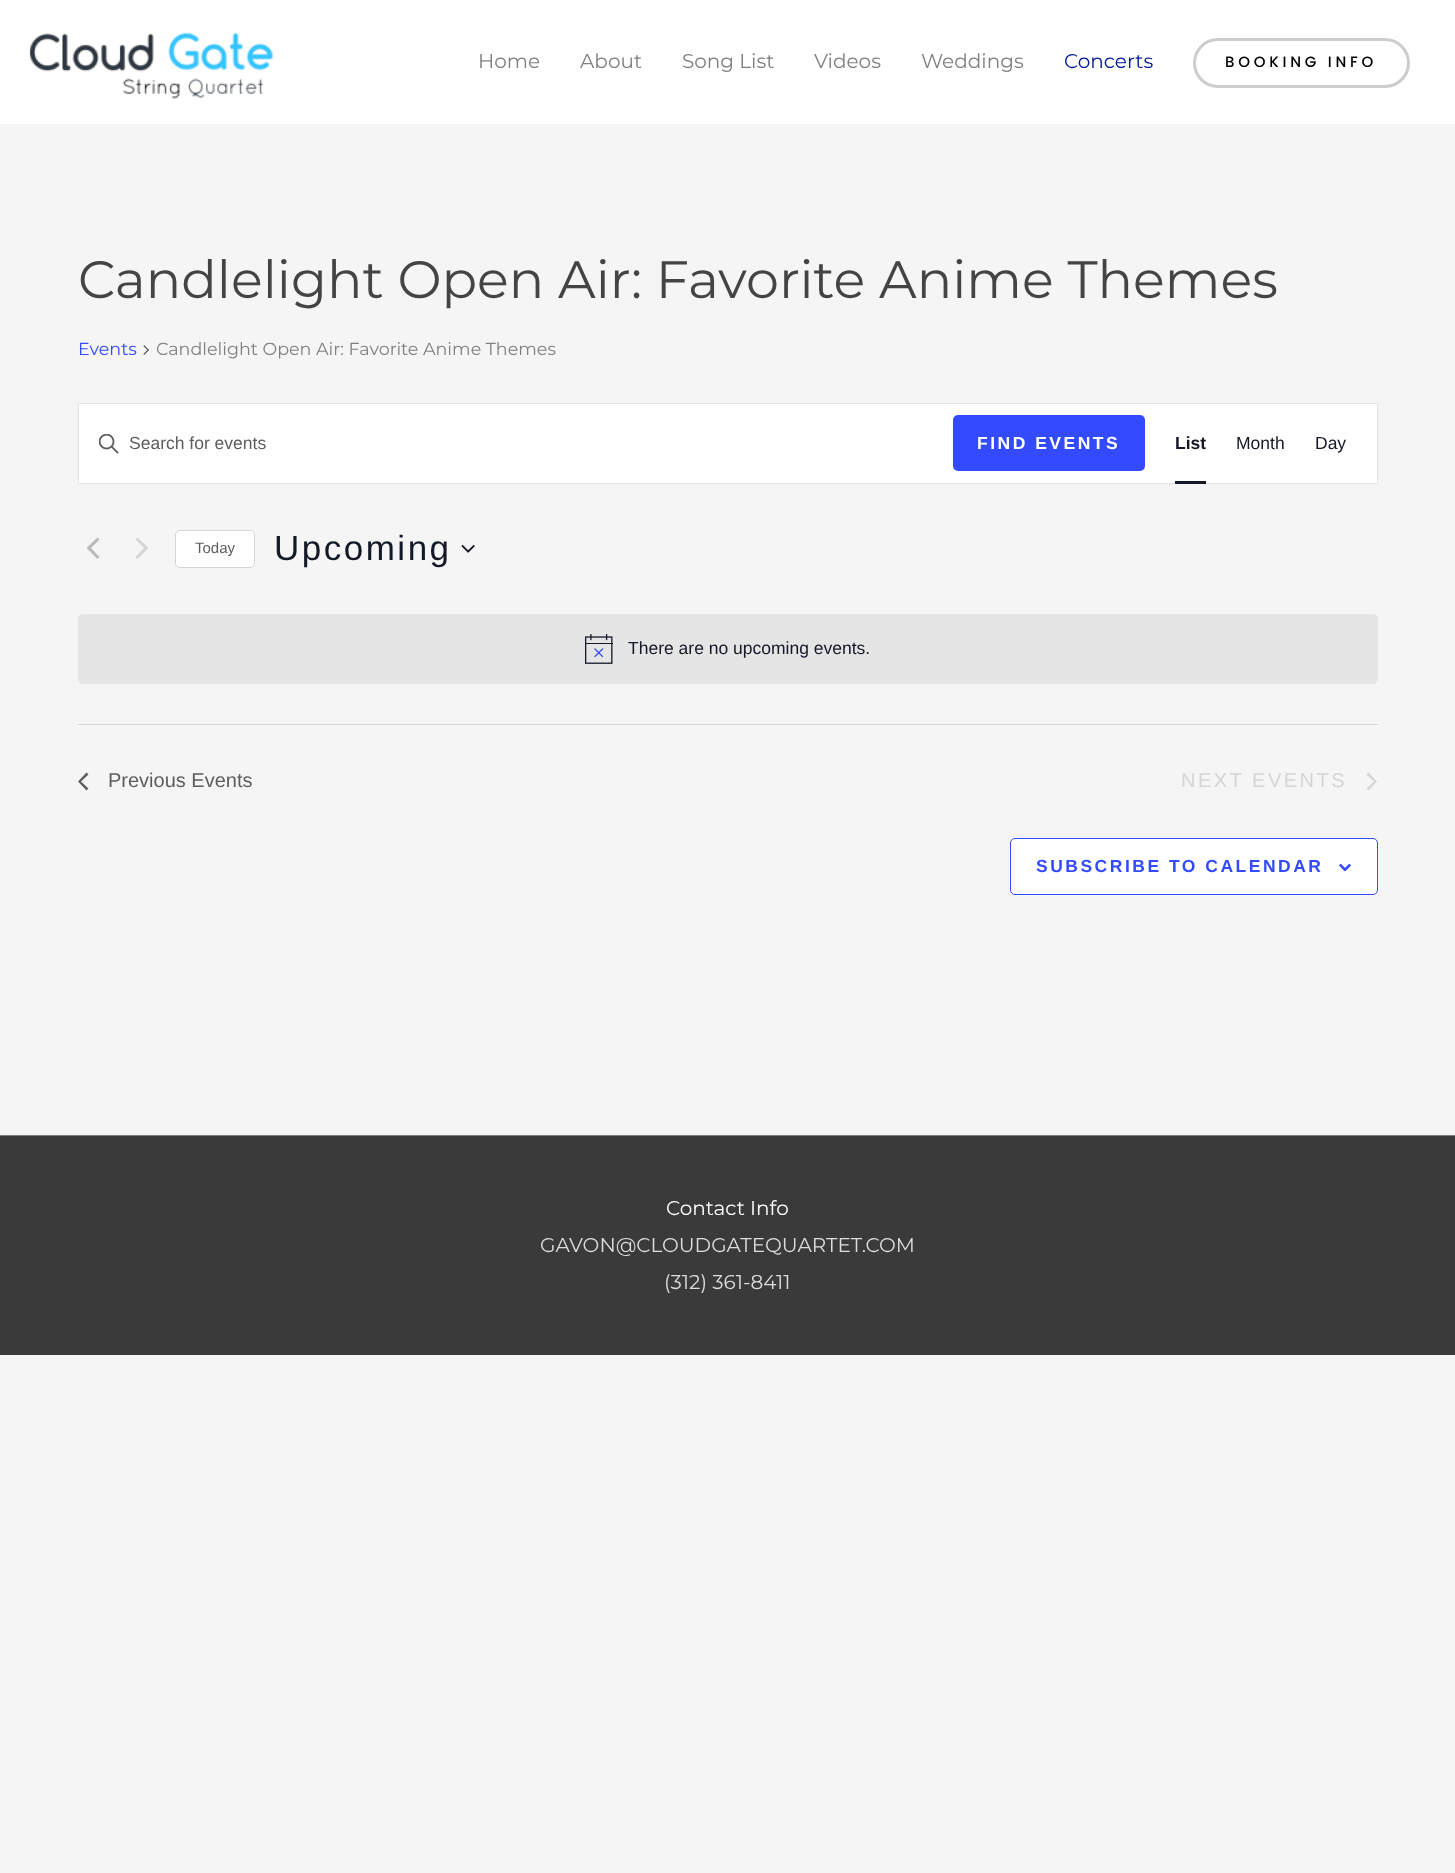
<!DOCTYPE html>
<meta charset="utf-8">
<style>body { margin: 0 } canvas { display: block }</style>
<canvas id="canvas" width="1455" height="1873"></canvas>
<img id="img1" src="images/1.png" hidden>
<img id="img2" src="images/2.png" hidden>
<img id="img3" src="images/3.png" hidden>
<img id="img4" src="images/4.png" hidden>
<img id="img5" src="images/5.png" hidden>
<img id="img6" src="images/6.png" hidden>
<script>
window.onload = function () {
    const canvas = document.getElementById('canvas');
    const context = canvas.getContext('2d');
    context.miterLimit = 4;
    context.fontKerning = 'normal';

    context.fillStyle = 'rgb(245, 245, 245)';
    context.fillRect(0, 0, 1455, 1873);
    context.fillStyle = 'rgb(255, 255, 255)';
    context.fillRect(0, 0, 1455, 124);
    context.drawImage(document.getElementById('img1'), 29, 32, 244, 67);
    context.beginPath();
    context.roundRect(1194.5, 39.5, 214, 47, 23.5);
    context.strokeStyle = 'rgb(205, 205, 205)';
    context.lineWidth = 3;
    context.stroke();
    context.drawImage(document.getElementById('img2'), 143, 345, 6, 10);
    context.beginPath();
    context.rect(78.5, 403.5, 1299, 80);
    context.fill();
    context.strokeStyle = 'rgb(228, 228, 228)';
    context.lineWidth = 1;
    context.stroke();
    context.drawImage(document.getElementById('img3'), 99, 434, 20, 20);
    context.fillStyle = 'rgb(51, 74, 255)';
    context.beginPath();
    context.roundRect(953, 415, 192, 56, 5);
    context.fill();
    context.fillStyle = 'rgb(20, 24, 39)';
    context.fillRect(1175, 481, 31, 3);
    context.fillStyle = 'rgb(186, 186, 186)';
    context.beginPath();
    context.moveTo(99.5, 557);
    context.lineTo(97.5, 559);
    context.lineTo(86.5, 548);
    context.lineTo(97.5, 537.5);
    context.lineTo(99.5, 539.5);
    context.lineTo(91, 548);
    context.closePath();
    context.fill();
    context.fillStyle = 'rgb(213, 213, 213)';
    context.beginPath();
    context.moveTo(135.5, 539.5);
    context.lineTo(137.5, 537.5);
    context.lineTo(148.5, 548);
    context.lineTo(137.5, 559);
    context.lineTo(135.5, 557);
    context.lineTo(144, 548);
    context.closePath();
    context.fill();
    context.fillStyle = 'rgb(255, 255, 255)';
    context.beginPath();
    context.roundRect(175.5, 530.5, 79, 37, 4.5);
    context.fill();
    context.strokeStyle = 'rgb(213, 213, 213)';
    context.stroke();
    context.drawImage(document.getElementById('img4'), 461, 544, 14, 9);
    context.fillStyle = 'rgb(229, 229, 230)';
    context.beginPath();
    context.roundRect(78, 614, 1300, 70, 5);
    context.fill();
    context.drawImage(document.getElementById('img5'), 585, 634, 28, 30);
    context.fillStyle = 'rgb(213, 213, 213)';
    context.fillRect(78, 724, 1300, 1);
    context.fillStyle = 'rgb(93, 93, 93)';
    context.beginPath();
    context.moveTo(88.5, 788.5);
    context.lineTo(86.5, 790.5);
    context.lineTo(78, 781.5);
    context.lineTo(86.5, 772.5);
    context.lineTo(88.5, 774.5);
    context.lineTo(81, 781.5);
    context.closePath();
    context.fill();
    context.fillStyle = 'rgb(213, 213, 213)';
    context.beginPath();
    context.moveTo(1366.5, 774.5);
    context.lineTo(1368.5, 772.5);
    context.lineTo(1377, 781.5);
    context.lineTo(1368.5, 790.5);
    context.lineTo(1366.5, 788.5);
    context.lineTo(1374, 781.5);
    context.closePath();
    context.fill();
    context.fillStyle = 'rgb(255, 255, 255)';
    context.beginPath();
    context.roundRect(1010.5, 838.5, 367, 56, 4.5);
    context.fill();
    context.strokeStyle = 'rgb(51, 74, 255)';
    context.stroke();
    context.drawImage(document.getElementById('img6'), 1339, 864, 12, 7);
    context.fillStyle = 'rgb(122, 122, 122)';
    context.fillRect(0, 1135, 1455, 1);
    context.fillStyle = 'rgb(58, 58, 58)';
    context.fillRect(0, 1136, 1455, 219);
    context.font = '20px Montserrat';
    context.fillStyle = 'rgb(128, 128, 128)';
    context.fillText('Home', 478, 68);
    context.fillText('About', 580, 68);
    context.fillText('Song List', 682, 68);
    context.fillText('Videos', 814, 68);
    context.fillText('Weddings', 921, 68);
    context.fillStyle = 'rgb(0, 23, 153)';
    context.fillText('Concerts', 1064, 68);
    context.letterSpacing = '3.75px';
    context.font = '500 15px Poppins';
    context.fillStyle = 'rgb(0, 0, 0)';
    context.fillText('BOOKING INFO', 1225, 67);
    context.letterSpacing = '0px';
    context.font = '52.5px Montserrat';
    context.fillStyle = 'rgb(68, 68, 68)';
    context.fillText('Candlelight Open Air: Favorite Anime Themes', 78, 298);
    context.font = '17.5px Montserrat';
    context.fillStyle = 'rgb(51, 74, 255)';
    context.fillText('Events', 78, 355);
    context.fillStyle = 'rgb(128, 128, 128)';
    context.fillText('Candlelight Open Air: Favorite Anime Themes', 156, 355);
    context.font = '17.5px Liberation Sans';
    context.fillStyle = 'rgb(93, 93, 93)';
    context.fillText('Search for events', 129, 449);
    context.letterSpacing = '2.5px';
    context.font = 'bold 17.5px Liberation Sans';
    context.fillStyle = 'rgb(255, 255, 255)';
    context.fillText('FIND EVENTS', 977, 449);
    context.letterSpacing = '0px';
    context.fillStyle = 'rgb(20, 24, 39)';
    context.fillText('List', 1175, 449);
    context.font = '17.5px Liberation Sans';
    context.fillText('Month', 1236, 449);
    context.fillText('Day', 1315, 449);
    context.font = '15px Liberation Sans';
    context.fillStyle = 'rgb(93, 93, 93)';
    context.fillText('Today', 195, 553);
    context.letterSpacing = '2.5px';
    context.font = '35px Liberation Sans';
    context.fillStyle = 'rgb(20, 24, 39)';
    context.fillText('Upcoming', 274, 560);
    context.letterSpacing = '0px';
    context.font = '17.5px Liberation Sans';
    context.fillText('There are no upcoming events.', 628, 654);
    context.font = '20px Liberation Sans';
    context.fillStyle = 'rgb(93, 93, 93)';
    context.fillText('Previous Events', 108, 787);
    context.letterSpacing = '2.5px';
    context.fillStyle = 'rgb(213, 213, 213)';
    context.fillText('NEXT EVENTS', 1181, 787);
    context.font = 'bold 17.5px Liberation Sans';
    context.fillStyle = 'rgb(51, 74, 255)';
    context.fillText('SUBSCRIBE TO CALENDAR', 1036, 872);
    context.letterSpacing = '0px';
    context.font = '20px Montserrat';
    context.fillStyle = 'rgb(255, 255, 255)';
    context.fillText('Contact Info', 666, 1215);
    context.fillStyle = 'rgb(221, 221, 221)';
    context.fillText('GAVON@CLOUDGATEQUARTET.COM', 540, 1252);
    context.fillText('(312) 361-8411', 664, 1289);
};
</script>
